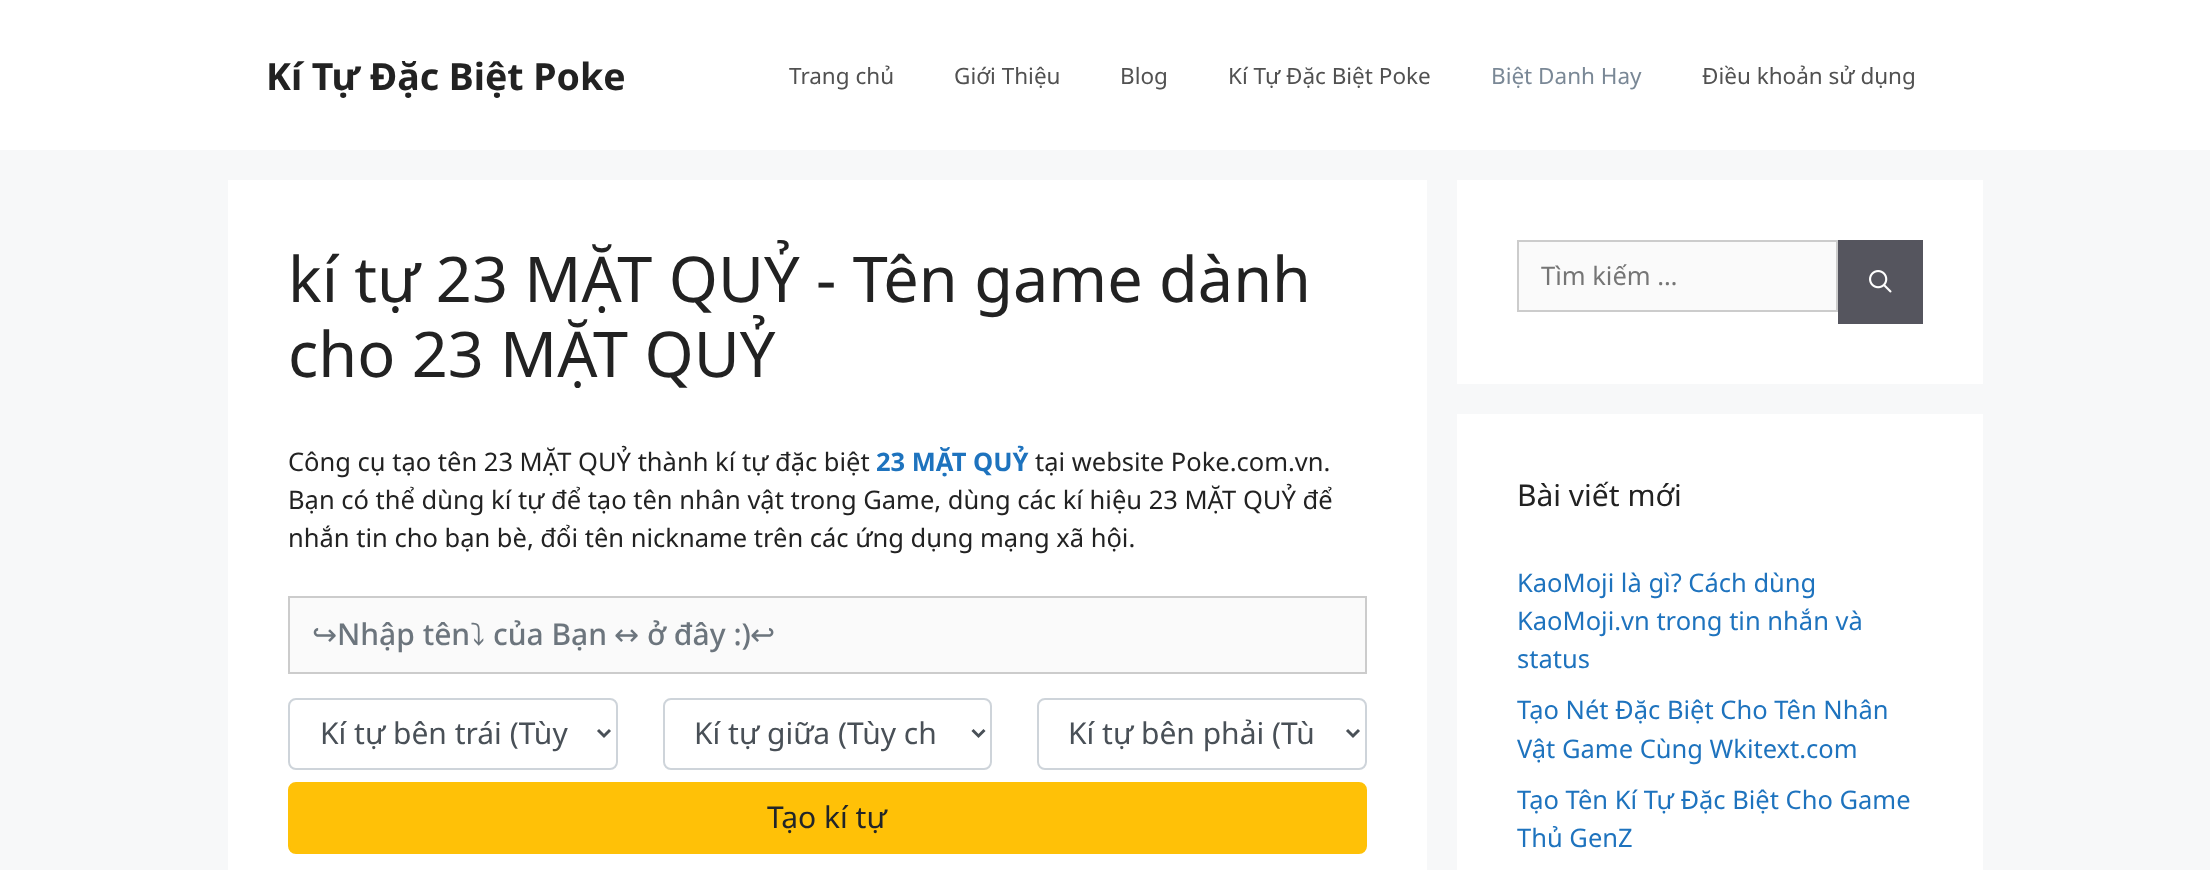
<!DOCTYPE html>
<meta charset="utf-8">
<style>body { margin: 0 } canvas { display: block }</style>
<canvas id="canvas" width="2210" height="870"></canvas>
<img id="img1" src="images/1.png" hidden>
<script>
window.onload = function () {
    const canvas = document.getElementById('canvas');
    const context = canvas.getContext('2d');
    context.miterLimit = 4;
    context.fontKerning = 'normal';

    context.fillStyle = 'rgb(247, 248, 249)';
    context.fillRect(0, 0, 2210, 870);
    context.fillStyle = 'rgb(255, 255, 255)';
    context.fillRect(0, 0, 2210, 150);
    context.fillRect(228, 180, 1199, 690);
    context.fillStyle = 'rgb(250, 250, 250)';
    context.beginPath();
    context.rect(289, 597, 1077, 76);
    context.fill();
    context.strokeStyle = 'rgb(204, 204, 204)';
    context.lineWidth = 2;
    context.stroke();
    context.beginPath();
    context.roundRect(289, 699, 328, 70, 7);
    context.strokeStyle = 'rgb(206, 212, 218)';
    context.stroke();
    context.beginPath();
    context.moveTo(598, 730);
    context.lineTo(604, 736);
    context.lineTo(610, 730);
    context.strokeStyle = 'rgb(73, 80, 87)';
    context.lineWidth = 3;
    context.stroke();
    context.beginPath();
    context.roundRect(664, 699, 327, 70, 7);
    context.strokeStyle = 'rgb(206, 212, 218)';
    context.lineWidth = 2;
    context.stroke();
    context.beginPath();
    context.moveTo(972.5, 730);
    context.lineTo(978.5, 736);
    context.lineTo(984.5, 730);
    context.strokeStyle = 'rgb(73, 80, 87)';
    context.lineWidth = 3;
    context.stroke();
    context.beginPath();
    context.roundRect(1038, 699, 328, 70, 7);
    context.strokeStyle = 'rgb(206, 212, 218)';
    context.lineWidth = 2;
    context.stroke();
    context.beginPath();
    context.moveTo(1347, 730);
    context.lineTo(1353, 736);
    context.lineTo(1359, 730);
    context.strokeStyle = 'rgb(73, 80, 87)';
    context.lineWidth = 3;
    context.stroke();
    context.fillStyle = 'rgb(255, 193, 7)';
    context.beginPath();
    context.roundRect(289, 783, 1077, 70, 7);
    context.fill();
    context.strokeStyle = 'rgb(255, 193, 7)';
    context.lineWidth = 2;
    context.stroke();
    context.fillStyle = 'rgb(255, 255, 255)';
    context.fillRect(1457, 180, 526, 204);
    context.fillStyle = 'rgb(250, 250, 250)';
    context.beginPath();
    context.rect(1518, 241, 319, 70);
    context.fill();
    context.strokeStyle = 'rgb(204, 204, 204)';
    context.stroke();
    context.fillStyle = 'rgb(85, 85, 94)';
    context.fillRect(1838, 240, 85, 84);
    context.drawImage(document.getElementById('img1'), 1869, 270, 23, 23);
    context.fillStyle = 'rgb(255, 255, 255)';
    context.fillRect(1457, 414, 526, 456);
    context.font = 'bold 37.5px Noto Sans';
    context.fillStyle = 'rgb(34, 34, 34)';
    context.fillText('Kí Tự Đặc Biệt Poke', 266, 90);
    context.font = '22.5px Noto Sans';
    context.fillStyle = 'rgb(81, 81, 81)';
    context.fillText('Trang chủ', 789, 84);
    context.fillText('Giới Thiệu', 954, 84);
    context.fillText('Blog', 1120, 84);
    context.fillText('Kí Tự Đặc Biệt Poke', 1228, 84);
    context.fillStyle = 'rgb(122, 136, 150)';
    context.fillText('Biệt Danh Hay', 1491, 84);
    context.fillStyle = 'rgb(81, 81, 81)';
    context.fillText('Điều khoản sử dụng', 1702, 84);
    context.font = '63px Noto Sans';
    context.fillStyle = 'rgb(34, 34, 34)';
    context.fillText('kí tự 23 MẶT QUỶ - Tên game dành', 288, 302);
    context.fillText('cho 23 MẶT QUỶ', 288, 377);
    context.font = '25.5px Noto Sans';
    context.fillText('Công cụ tạo tên 23 MẶT QUỶ thành kí tự đặc biệt', 288, 471);
    context.font = 'bold 25.5px Noto Sans';
    context.fillStyle = 'rgb(30, 115, 190)';
    context.fillText('23 MẶT QUỶ', 876, 471);
    context.font = '25.5px Noto Sans';
    context.fillStyle = 'rgb(34, 34, 34)';
    context.fillText('tại website Poke.com.vn.', 1035, 471);
    context.fillText('Bạn có thể dùng kí tự để tạo tên nhân vật trong Game, dùng các kí hiệu 23 MẶT QUỶ để', 288, 509);
    context.fillText('nhắn tin cho bạn bè, đổi tên nickname trên các ứng dụng mạng xã hội.', 288, 547);
    context.font = '30px DejaVu Sans';
    context.fillStyle = 'rgb(108, 117, 125)';
    context.fillText('↪', 312, 645);
    context.font = '500 30px Noto Sans';
    context.fillText('Nhập tên', 337, 645);
    context.font = '30px IPAGothic';
    context.fillText('⤵', 470, 645);
    context.font = '500 30px Noto Sans';
    context.fillText('của Bạn', 493, 645);
    context.font = '30px DejaVu Sans';
    context.fillText('↔', 614, 645);
    context.font = '500 30px Noto Sans';
    context.fillText('ở đây :)', 647, 645);
    context.font = '30px DejaVu Sans';
    context.fillText('↩', 750, 645);
    context.font = '30px Noto Sans';
    context.fillStyle = 'rgb(73, 80, 87)';
    context.fillText('Kí tự bên trái (Tùy', 320, 744);
    context.fillText('Kí tự giữa (Tùy ch', 694, 744);
    context.fillText('Kí tự bên phải (Tù', 1068, 744);
    context.fillStyle = 'rgb(33, 37, 41)';
    context.fillText('Tạo kí tự', 767, 828);
    context.font = '25.5px Noto Sans';
    context.fillStyle = 'rgb(117, 117, 117)';
    context.fillText('Tìm kiếm …', 1541, 285);
    context.font = '30px Noto Sans';
    context.fillStyle = 'rgb(34, 34, 34)';
    context.fillText('Bài viết mới', 1517, 506);
    context.font = '25.5px Noto Sans';
    context.fillStyle = 'rgb(30, 115, 190)';
    context.fillText('KaoMoji là gì? Cách dùng', 1517, 592);
    context.fillText('KaoMoji.vn trong tin nhắn và', 1517, 630);
    context.fillText('status', 1517, 668);
    context.fillText('Tạo Nét Đặc Biệt Cho Tên Nhân', 1517, 719);
    context.fillText('Vật Game Cùng Wkitext.com', 1517, 758);
    context.fillText('Tạo Tên Kí Tự Đặc Biệt Cho Game', 1517, 809);
    context.fillText('Thủ GenZ', 1517, 847);
};
</script>
